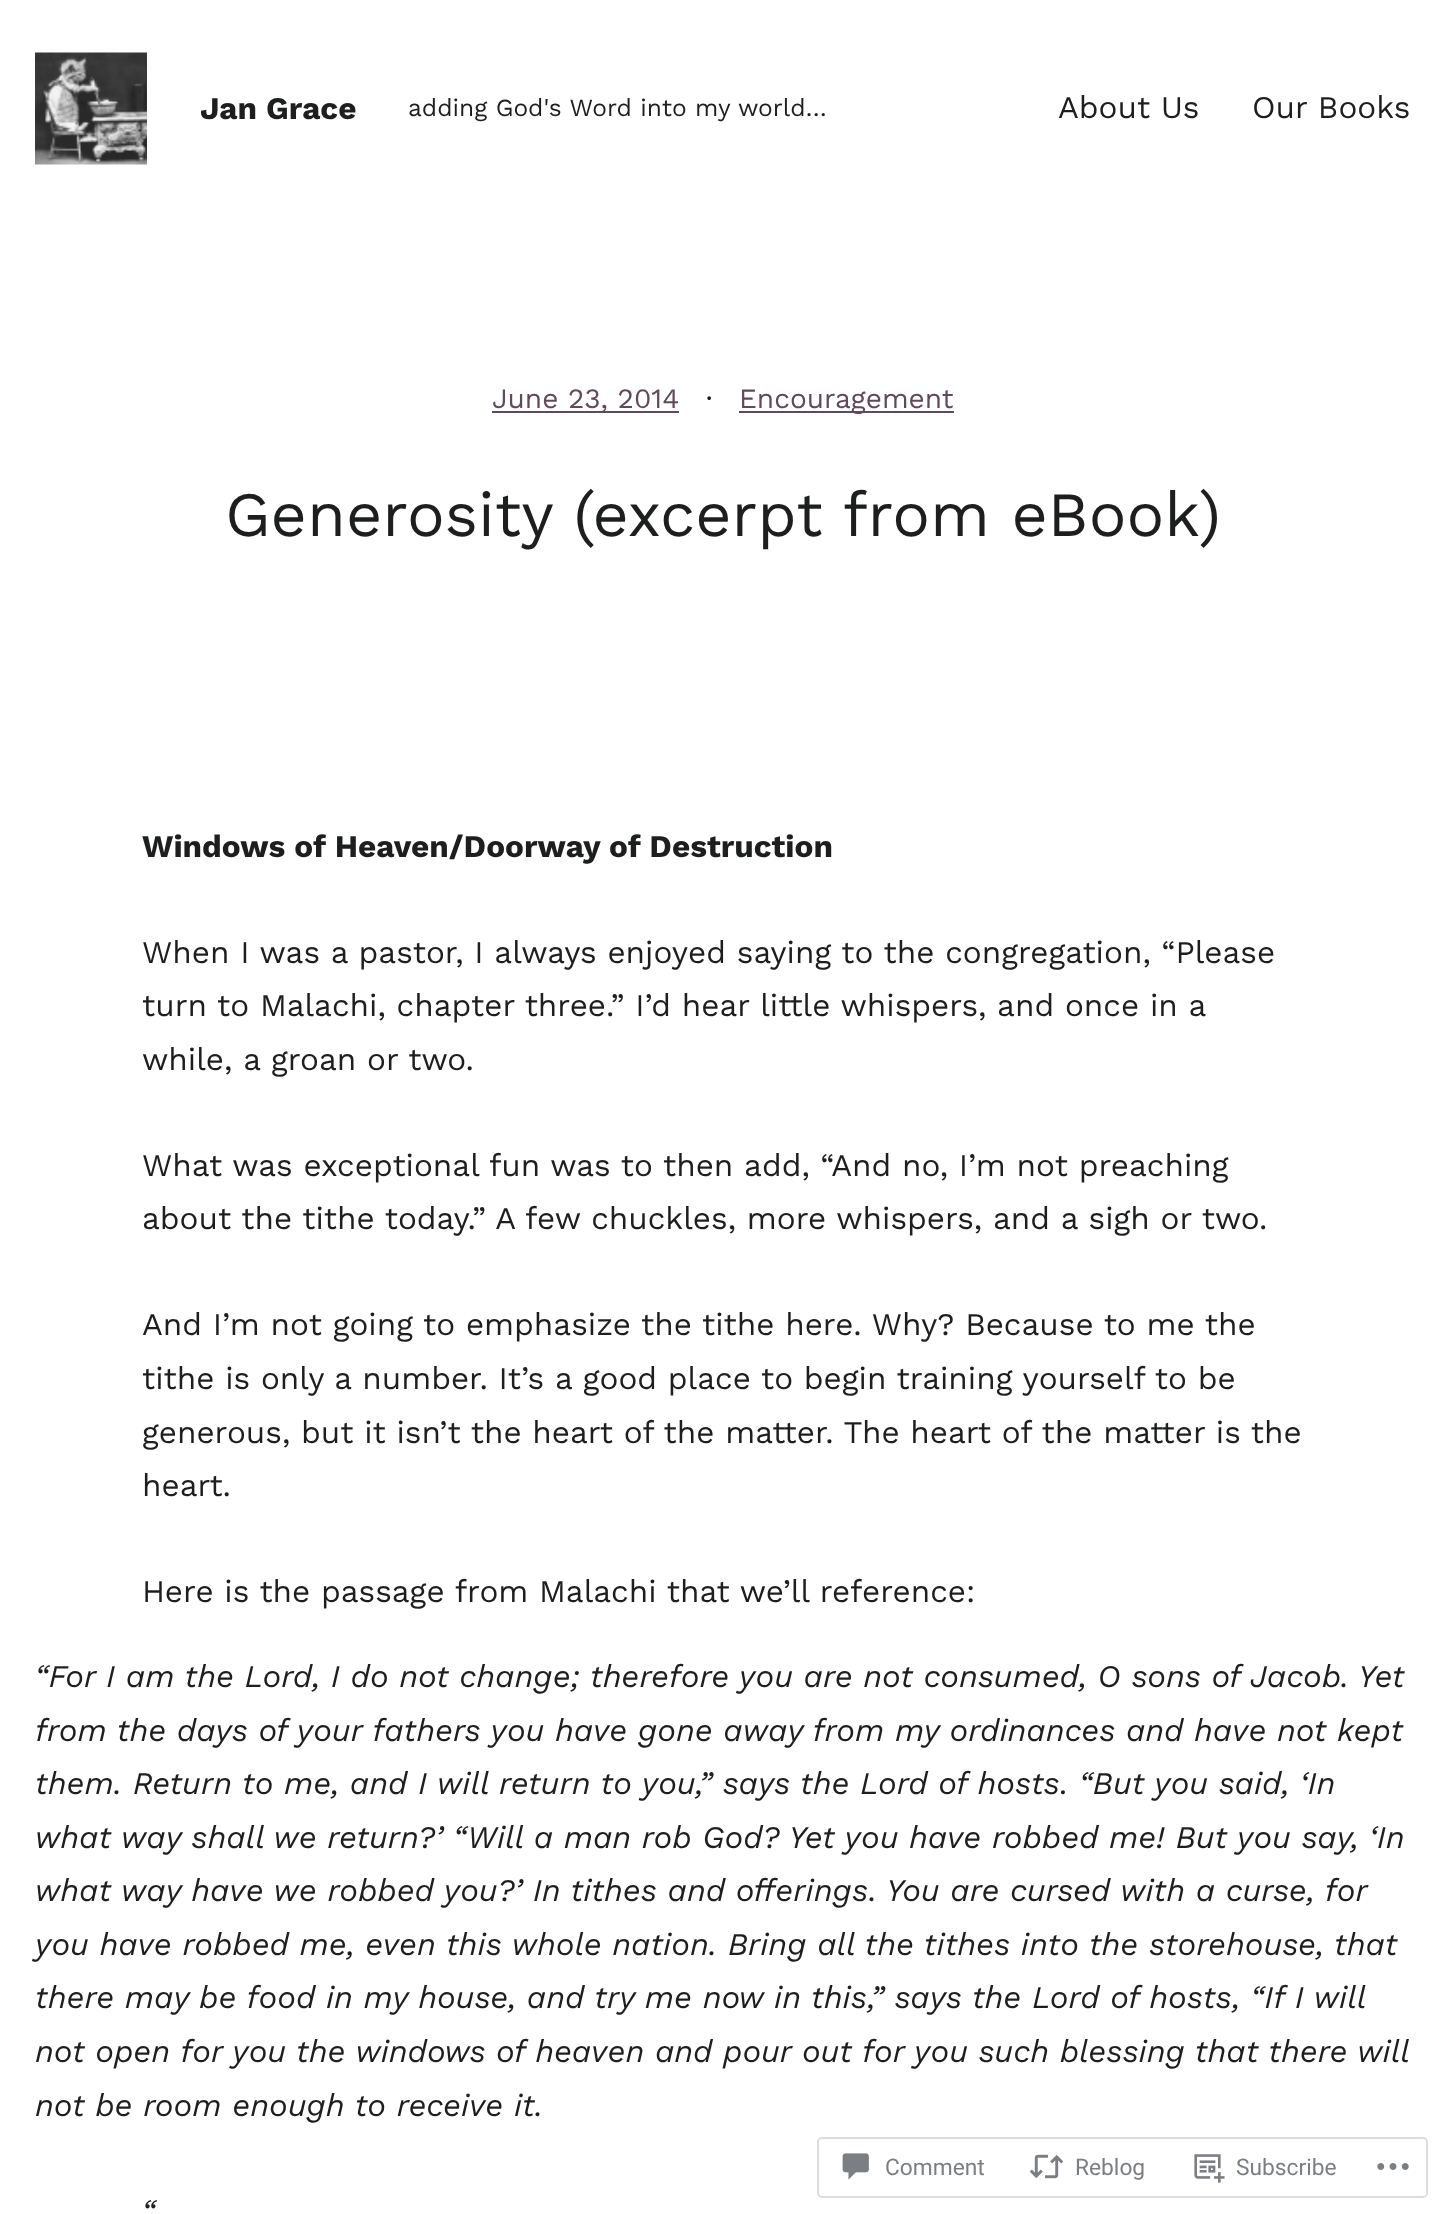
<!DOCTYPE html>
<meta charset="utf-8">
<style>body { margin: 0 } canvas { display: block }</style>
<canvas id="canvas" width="1445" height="2214"></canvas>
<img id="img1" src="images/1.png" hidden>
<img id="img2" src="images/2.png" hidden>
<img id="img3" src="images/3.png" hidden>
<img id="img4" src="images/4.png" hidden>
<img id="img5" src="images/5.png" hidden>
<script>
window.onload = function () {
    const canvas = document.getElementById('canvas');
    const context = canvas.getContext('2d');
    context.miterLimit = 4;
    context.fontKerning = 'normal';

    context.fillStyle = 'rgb(255, 255, 255)';
    context.fillRect(0, 0, 1445, 2214);
    context.drawImage(document.getElementById('img1'), 35, 52, 112, 113);
    context.fillStyle = 'rgb(96, 73, 90)';
    context.fillRect(492, 411, 187, 2);
    context.fillRect(739, 411, 215, 2);
    context.beginPath();
    context.roundRect(818, 2138, 609, 59, 4);
    context.strokeStyle = 'rgb(221, 221, 223)';
    context.lineWidth = 2;
    context.stroke();
    context.drawImage(document.getElementById('img2'), 842, 2153, 27, 27);
    context.drawImage(document.getElementById('img3'), 1029, 2154, 35, 25);
    context.drawImage(document.getElementById('img4'), 1194, 2154, 31, 29);
    context.drawImage(document.getElementById('img5'), 1377, 2163, 32, 7);
    context.font = 'bold 31.5px Work Sans';
    context.fillStyle = 'rgb(29, 30, 30)';
    context.fillText('Jan Grace', 200, 119);
    context.font = '24.5px Work Sans';
    context.fillText('adding God\'s Word into my world…', 408, 116);
    context.font = '31.5px Work Sans';
    context.fillText('About Us', 1058, 118);
    context.fillText('Our Books', 1252, 118);
    context.font = '28px Work Sans';
    context.fillStyle = 'rgb(96, 73, 90)';
    context.fillText('June 23, 2014', 492, 408);
    context.fillStyle = 'rgb(29, 30, 30)';
    context.fillText('·', 706, 408);
    context.fillStyle = 'rgb(96, 73, 90)';
    context.fillText('Encouragement', 739, 408);
    context.font = '63px Work Sans';
    context.fillStyle = 'rgb(29, 30, 30)';
    context.fillText('Generosity (excerpt from eBook)', 225, 536);
    context.font = 'bold 31.5px Work Sans';
    context.fillText('Windows of Heaven/Doorway of Destruction', 142, 857);
    context.font = '31.5px Work Sans';
    context.fillText('When I was a pastor, I always enjoyed saying to the congregation, “Please', 142, 963);
    context.fillText('turn to Malachi, chapter three.” I’d hear little whispers, and once in a', 142, 1016);
    context.fillText('while, a groan or two.', 142, 1070);
    context.fillText('What was exceptional fun was to then add, “And no, I’m not preaching', 142, 1176);
    context.fillText('about the tithe today.” A few chuckles, more whispers, and a sigh or two.', 142, 1229);
    context.fillText('And I’m not going to emphasize the tithe here. Why? Because to me the', 142, 1335);
    context.fillText('tithe is only a number. It’s a good place to begin training yourself to be', 142, 1389);
    context.fillText('generous, but it isn’t the heart of the matter. The heart of the matter is the', 142, 1443);
    context.fillText('heart.', 142, 1496);
    context.fillText('Here is the passage from Malachi that we’ll reference:', 142, 1602);
    context.font = 'italic 31.5px Work Sans';
    context.fillText('“For I am the Lord, I do not change; therefore you are not consumed, O sons of Jacob. Yet', 35, 1687);
    context.fillText('from the days of your fathers you have gone away from my ordinances and have not kept', 35, 1741);
    context.fillText('them. Return to me, and I will return to you,” says the Lord of hosts. “But you said, ‘In', 35, 1794);
    context.fillText('what way shall we return?’ “Will a man rob God? Yet you have robbed me! But you say, ‘In', 35, 1848);
    context.fillText('what way have we robbed you?’ In tithes and offerings. You are cursed with a curse, for', 35, 1901);
    context.fillText('you have robbed me, even this whole nation. Bring all the tithes into the storehouse, that', 35, 1955);
    context.fillText('there may be food in my house, and try me now in this,” says the Lord of hosts, “If I will', 35, 2008);
    context.fillText('not open for you the windows of heaven and pour out for you such blessing that there will', 35, 2062);
    context.fillText('not be room enough to receive it.', 35, 2116);
    context.fillText('“', 142, 2222);
    context.font = '22.75px Roboto';
    context.fillStyle = 'rgb(123, 127, 133)';
    context.fillText('Comment', 885, 2175);
    context.fillText('Reblog', 1075, 2175);
    context.fillText('Subscribe', 1236, 2175);
};
</script>
